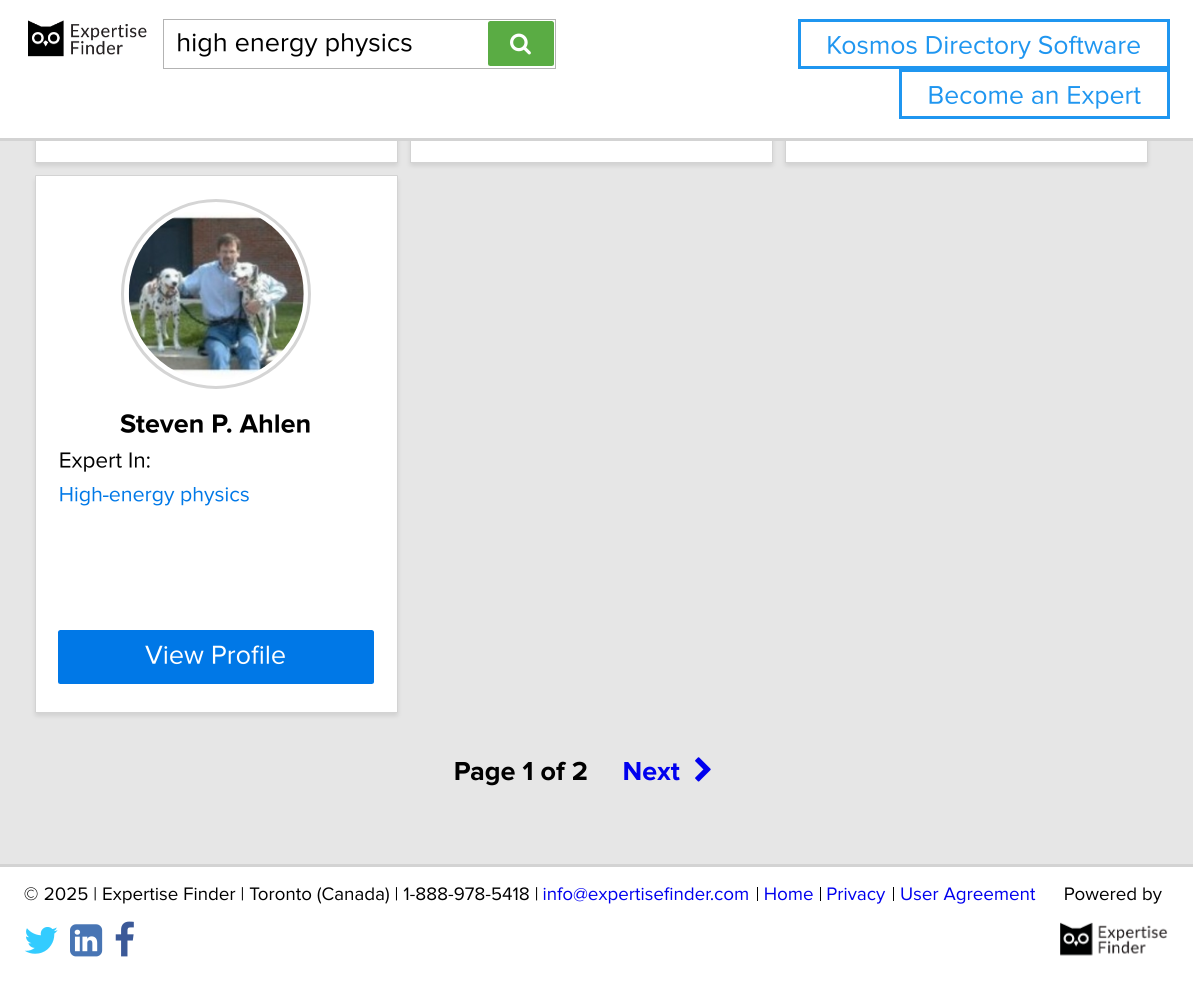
<!DOCTYPE html>
<meta charset="utf-8">
<style>body { margin: 0 } canvas { display: block }</style>
<canvas id="canvas" width="1193" height="985"></canvas>
<img id="img1" src="images/1.png" hidden>
<img id="img2" src="images/2.png" hidden>
<img id="img3" src="images/3.png" hidden>
<img id="img4" src="images/4.png" hidden>
<img id="img5" src="images/5.png" hidden>
<img id="img6" src="images/6.png" hidden>
<img id="img7" src="images/7.png" hidden>
<img id="img8" src="images/8.png" hidden>
<img id="img9" src="images/9.png" hidden>
<img id="img10" src="images/10.png" hidden>
<img id="img11" src="images/11.png" hidden>
<img id="img12" src="images/12.png" hidden>
<img id="img13" src="images/13.png" hidden>
<img id="img14" src="images/14.png" hidden>
<img id="img15" src="images/15.png" hidden>
<img id="img16" src="images/16.png" hidden>
<img id="img17" src="images/17.png" hidden>
<img id="img18" src="images/18.png" hidden>
<img id="img19" src="images/19.png" hidden>
<img id="img20" src="images/20.png" hidden>
<img id="img21" src="images/21.png" hidden>
<img id="img22" src="images/22.png" hidden>
<img id="img23" src="images/23.png" hidden>
<img id="img24" src="images/24.png" hidden>
<img id="img25" src="images/25.png" hidden>
<img id="img26" src="images/26.png" hidden>
<script>
window.onload = function () {
    const canvas = document.getElementById('canvas');
    const context = canvas.getContext('2d');
    context.miterLimit = 4;
    context.fontKerning = 'normal';

    context.fillStyle = 'rgb(230, 230, 230)';
    context.fillRect(0, 0, 1193, 985);
    context.fillStyle = 'rgba(0, 0, 0, 0.09)';
    context.filter = 'blur(2px)';
    context.beginPath();
    context.rect(35, -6, 363, 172);
    context.fill();
    context.filter = 'none';
    context.fillStyle = 'rgb(255, 255, 255)';
    context.fillRect(36, 141, 361, 21);
    context.strokeStyle = 'rgb(211, 211, 211)';
    context.strokeRect(35.5, -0.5, 362, 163);
    context.fillStyle = 'rgba(0, 0, 0, 0.09)';
    context.filter = 'blur(2px)';
    context.beginPath();
    context.rect(410, -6, 363, 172);
    context.fill();
    context.filter = 'none';
    context.fillStyle = 'rgb(255, 255, 255)';
    context.fillRect(411, 141, 361, 21);
    context.strokeRect(410.5, -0.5, 362, 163);
    context.fillStyle = 'rgba(0, 0, 0, 0.09)';
    context.filter = 'blur(2px)';
    context.beginPath();
    context.rect(785, -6, 363, 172);
    context.fill();
    context.filter = 'none';
    context.fillStyle = 'rgb(255, 255, 255)';
    context.fillRect(786, 141, 361, 21);
    context.strokeRect(785.5, -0.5, 362, 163);
    context.fillStyle = 'rgba(0, 0, 0, 0.09)';
    context.filter = 'blur(2px)';
    context.beginPath();
    context.rect(35, 179, 363, 537);
    context.fill();
    context.filter = 'none';
    context.fillStyle = 'rgb(255, 255, 255)';
    context.beginPath();
    context.rect(35.5, 175.5, 362, 537);
    context.fill();
    context.stroke();
    context.beginPath();
    context.arc(216, 294, 93.5, 0, 2 * Math.PI);
    context.strokeStyle = 'rgb(213, 213, 213)';
    context.lineWidth = 3;
    context.stroke();
    context.drawImage(document.getElementById('img1'), 128, 212, 176, 167);
    context.drawImage(document.getElementById('img2'), 120, 414, 190, 19);
    context.drawImage(document.getElementById('img3'), 60, 452, 90, 20);
    context.drawImage(document.getElementById('img4'), 60, 487, 42, 19);
    context.fillStyle = 'rgb(0, 120, 231)';
    context.beginPath();
    context.moveTo(108.5, 497);
    context.lineTo(108.5, 495.5);
    context.lineTo(103, 495.5);
    context.lineTo(103, 497);
    context.closePath();
    context.fill();
    context.drawImage(document.getElementById('img5'), 109, 490, 66, 16);
    context.drawImage(document.getElementById('img6'), 181, 487, 68, 19);
    context.beginPath();
    context.roundRect(58, 630, 316, 54, 2.5);
    context.fill();
    context.drawImage(document.getElementById('img7'), 145, 645, 140, 20);
    context.drawImage(document.getElementById('img8'), 455, 761, 132, 25);
    context.drawImage(document.getElementById('img9'), 624, 762, 56, 19);
    context.drawImage(document.getElementById('img10'), 695, 757, 16, 25);
    context.fillStyle = 'rgb(255, 255, 255)';
    context.fillRect(0, 0, 1193, 138);
    context.fillStyle = 'rgb(211, 211, 211)';
    context.fillRect(0, 138, 1193, 3);
    context.drawImage(document.getElementById('img11'), 28, 20, 119, 37);
    context.strokeStyle = 'rgb(179, 179, 179)';
    context.lineWidth = 1;
    context.strokeRect(163.5, 19.5, 392, 49);
    context.drawImage(document.getElementById('img12'), 178, 33, 234, 24);
    context.fillStyle = 'rgb(90, 172, 68)';
    context.beginPath();
    context.roundRect(488, 21, 66, 45, 2.5);
    context.fill();
    context.drawImage(document.getElementById('img13'), 510, 33, 21, 22);
    context.strokeStyle = 'rgb(31, 150, 240)';
    context.lineWidth = 3;
    context.strokeRect(799.5, 20.5, 369, 47);
    context.drawImage(document.getElementById('img14'), 828, 35, 312, 24);
    context.strokeRect(900.5, 70.5, 268, 47);
    context.drawImage(document.getElementById('img15'), 929, 86, 212, 23);
    context.fillStyle = 'rgb(255, 255, 255)';
    context.fillRect(0, 867, 1193, 118);
    context.fillStyle = 'rgb(211, 211, 211)';
    context.fillRect(0, 864, 1193, 3);
    context.drawImage(document.getElementById('img16'), 24, 887, 14, 14);
    context.drawImage(document.getElementById('img17'), 44, 887, 494, 17);
    context.drawImage(document.getElementById('img18'), 543, 887, 205, 17);
    context.fillStyle = 'rgb(0, 0, 0)';
    context.fillRect(757, 887, 1, 14);
    context.drawImage(document.getElementById('img19'), 765, 887, 48, 14);
    context.fillRect(820, 887, 1, 14);
    context.drawImage(document.getElementById('img20'), 827, 887, 59, 17);
    context.fillRect(893, 887, 1, 14);
    context.drawImage(document.getElementById('img21'), 901, 887, 135, 17);
    context.drawImage(document.getElementById('img22'), 24, 927, 34, 27);
    context.drawImage(document.getElementById('img23'), 70, 924, 33, 33);
    context.drawImage(document.getElementById('img24'), 115, 921, 19, 36);
    context.drawImage(document.getElementById('img25'), 1065, 887, 97, 17);
    context.drawImage(document.getElementById('img26'), 1060, 922, 108, 34);
};
</script>
